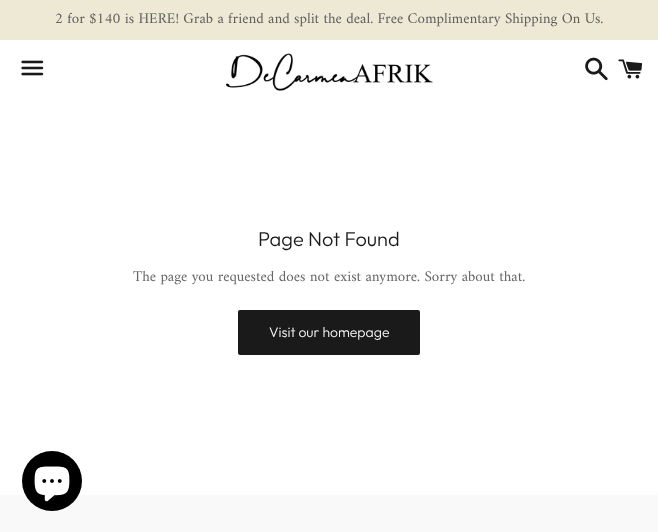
<!DOCTYPE html>
<meta charset="utf-8">
<style>body { margin: 0 } canvas { display: block }</style>
<canvas id="canvas" width="658" height="532"></canvas>
<img id="img1" src="images/1.png" hidden>
<img id="img2" src="images/2.png" hidden>
<img id="img3" src="images/3.png" hidden>
<img id="img4" src="images/4.png" hidden>
<img id="img5" src="images/5.png" hidden>
<script>
window.onload = function () {
    const canvas = document.getElementById('canvas');
    const context = canvas.getContext('2d');
    context.miterLimit = 4;
    context.fontKerning = 'normal';

    context.fillStyle = 'rgb(255, 255, 255)';
    context.fillRect(0, 0, 658, 532);
    context.fillStyle = 'rgb(237, 233, 212)';
    context.fillRect(0, 0, 658, 40);
    context.drawImage(document.getElementById('img1'), 21, 60, 23, 16);
    context.drawImage(document.getElementById('img2'), 226, 53, 207, 38);
    context.drawImage(document.getElementById('img3'), 585, 57, 23, 24);
    context.drawImage(document.getElementById('img4'), 618, 59, 25, 20);
    context.fillStyle = 'rgb(26, 26, 26)';
    context.beginPath();
    context.roundRect(238, 310, 182, 45, 2);
    context.fill();
    context.fillStyle = 'rgb(249, 249, 249)';
    context.fillRect(0, 495, 658, 37);
    context.fillStyle = 'rgb(0, 0, 0)';
    context.beginPath();
    context.arc(52, 481, 30, 0, 2 * Math.PI);
    context.fill();
    context.drawImage(document.getElementById('img5'), 34, 466, 36, 36);
    context.font = '15px Amiri';
    context.fillStyle = 'rgb(95, 95, 95)';
    context.fillText('2 for $140 is HERE! Grab a friend and split the deal. Free Complimentary Shipping On Us.', 55, 23);
    context.font = '300 20px Outfit';
    context.fillStyle = 'rgb(26, 26, 26)';
    context.fillText('Page Not Found', 258, 246);
    context.font = '15px Amiri';
    context.fillStyle = 'rgb(102, 102, 102)';
    context.fillText('The page you requested does not exist anymore. Sorry about that.', 133, 281);
    context.font = '300 14px Outfit';
    context.fillStyle = 'rgb(249, 249, 249)';
    context.fillText('Visit our homepage', 269, 337);
};
</script>
